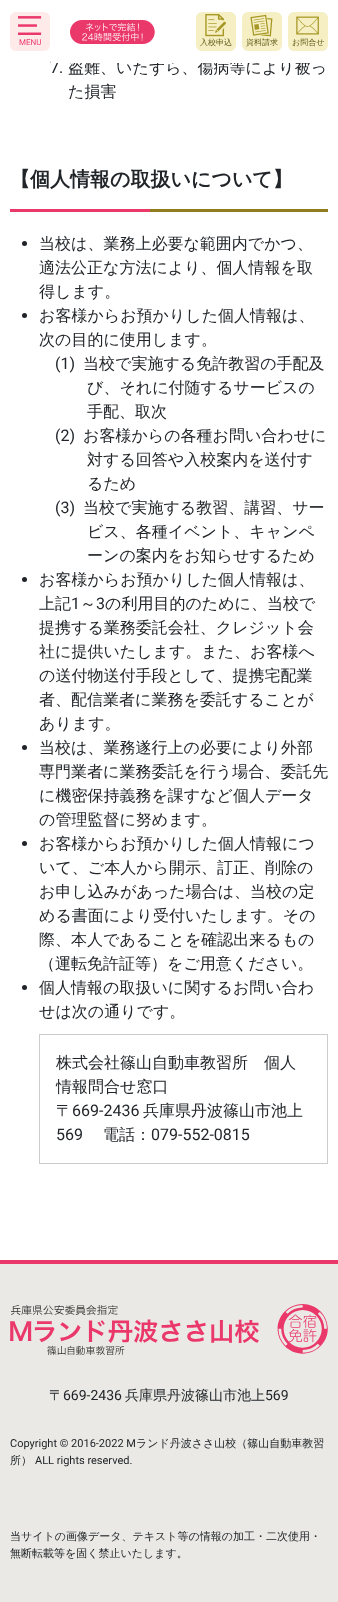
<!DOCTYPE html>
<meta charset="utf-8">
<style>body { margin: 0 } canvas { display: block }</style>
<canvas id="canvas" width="338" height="1602"></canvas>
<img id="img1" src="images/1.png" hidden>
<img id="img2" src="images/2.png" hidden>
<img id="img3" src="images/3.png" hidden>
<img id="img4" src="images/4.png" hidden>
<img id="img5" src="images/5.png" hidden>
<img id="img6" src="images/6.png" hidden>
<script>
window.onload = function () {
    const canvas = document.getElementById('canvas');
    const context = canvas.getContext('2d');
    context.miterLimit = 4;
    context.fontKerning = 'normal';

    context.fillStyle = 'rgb(255, 255, 255)';
    context.fillRect(0, 0, 338, 1602);
    context.fillStyle = 'rgb(255, 234, 234)';
    context.beginPath();
    context.roundRect(10, 12, 40, 39, 6);
    context.fill();
    context.drawImage(document.getElementById('img1'), 18, 16, 24, 19);
    context.drawImage(document.getElementById('img2'), 70, 20, 85, 24);
    context.fillStyle = 'rgb(245, 239, 195)';
    context.beginPath();
    context.roundRect(196, 12, 40, 39, 6);
    context.fill();
    context.drawImage(document.getElementById('img3'), 205, 14, 21, 23);
    context.beginPath();
    context.roundRect(242, 12, 40, 39, 6);
    context.fill();
    context.drawImage(document.getElementById('img4'), 250, 14, 23, 23);
    context.beginPath();
    context.roundRect(288, 12, 40, 39, 6);
    context.fill();
    context.drawImage(document.getElementById('img5'), 296, 16, 23, 19);
    context.fillStyle = 'rgb(142, 125, 30)';
    context.fillRect(150, 209, 178, 3);
    context.fillStyle = 'rgb(235, 56, 107)';
    context.fillRect(10, 209, 140, 3);
    context.fillStyle = 'rgb(33, 37, 41)';
    context.beginPath();
    context.arc(24.5, 243.5, 2.5, 0, 2 * Math.PI);
    context.fill();
    context.beginPath();
    context.arc(24.5, 315.5, 2.5, 0, 2 * Math.PI);
    context.fill();
    context.beginPath();
    context.arc(24.5, 579.5, 2.5, 0, 2 * Math.PI);
    context.fill();
    context.beginPath();
    context.arc(24.5, 747.5, 2.5, 0, 2 * Math.PI);
    context.fill();
    context.beginPath();
    context.arc(24.5, 843.5, 2.5, 0, 2 * Math.PI);
    context.fill();
    context.beginPath();
    context.arc(24.5, 987.5, 2.5, 0, 2 * Math.PI);
    context.fill();
    context.strokeStyle = 'rgb(204, 204, 204)';
    context.strokeRect(39.5, 1034.5, 288, 129);
    context.fillStyle = 'rgb(234, 233, 229)';
    context.fillRect(0, 1264, 338, 338);
    context.fillStyle = 'rgb(235, 56, 107)';
    context.fillRect(0, 1260, 338, 4);
    context.drawImage(document.getElementById('img6'), 10, 1304, 318, 51);
    context.font = '8px Roboto';
    context.fillText('MENU', 19, 45);
    context.font = '500 8px WenQuanYi Zen Hei';
    context.fillStyle = 'rgb(96, 88, 20)';
    context.fillText('入校申込', 200, 45);
    context.fillText('資料請求', 246, 45);
    context.fillText('お問合せ', 292, 45);
    context.font = '16px Roboto';
    context.fillStyle = 'rgb(33, 37, 41)';
    context.fillText('7.', 50, 73);
    context.font = '500 16px WenQuanYi Zen Hei';
    context.fillText('盗難、いたずら、傷病等により被っ', 68, 73);
    context.fillStyle = 'rgb(255, 255, 255)';
    context.fillRect(51, 59, 259, 4);
    context.fillStyle = 'rgb(33, 37, 41)';
    context.fillText('た損害', 68, 97);
    context.font = 'bold 20px WenQuanYi Zen Hei';
    context.fillText('【個人情報の取扱いについて】', 10, 186);
    context.font = '500 16px WenQuanYi Zen Hei';
    context.fillText('当校は、業務上必要な範囲内でかつ、', 39, 249);
    context.fillText('適法公正な方法により、個人情報を取', 39, 273);
    context.fillText('得します。', 39, 297);
    context.fillText('お客様からお預かりした個人情報は、', 39, 321);
    context.fillText('次の目的に使用します。', 39, 345);
    context.font = '16px Roboto';
    context.fillText('(1)', 55, 369);
    context.font = '500 16px WenQuanYi Zen Hei';
    context.fillText('当校で実施する免許教習の手配及', 83, 369);
    context.fillText('び、それに付随するサービスの', 87, 393);
    context.fillText('手配、取次', 87, 417);
    context.font = '16px Roboto';
    context.fillText('(2)', 55, 441);
    context.font = '500 16px WenQuanYi Zen Hei';
    context.fillText('お客様からの各種お問い合わせに', 83, 441);
    context.fillText('対する回答や入校案内を送付す', 87, 465);
    context.fillText('るため', 87, 489);
    context.font = '16px Roboto';
    context.fillText('(3)', 55, 513);
    context.font = '500 16px WenQuanYi Zen Hei';
    context.fillText('当校で実施する教習、講習、サー', 83, 513);
    context.fillText('ビス、各種イベント、キャンペ', 87, 537);
    context.fillText('ーンの案内をお知らせするため', 87, 561);
    context.fillText('お客様からお預かりした個人情報は、', 39, 585);
    context.fillText('上記', 39, 609);
    context.font = '16px Roboto';
    context.fillText('1', 71, 609);
    context.font = '500 16px WenQuanYi Zen Hei';
    context.fillText('～', 80, 609);
    context.font = '16px Roboto';
    context.fillText('3', 96, 609);
    context.font = '500 16px WenQuanYi Zen Hei';
    context.fillText('の利用目的のために、当校で', 105, 609);
    context.fillText('提携する業務委託会社、クレジット会', 39, 633);
    context.fillText('社に提供いたします。また、お客様へ', 39, 657);
    context.fillText('の送付物送付手段として、提携宅配業', 39, 681);
    context.fillText('者、配信業者に業務を委託することが', 39, 705);
    context.fillText('あります。', 39, 729);
    context.fillText('当校は、業務遂行上の必要により外部', 39, 753);
    context.fillText('専門業者に業務委託を行う場合、委託先', 39, 777);
    context.fillText('に機密保持義務を課すなど個人データ', 39, 801);
    context.fillText('の管理監督に努めます。', 39, 825);
    context.fillText('お客様からお預かりした個人情報につ', 39, 849);
    context.fillText('いて、ご本人から開示、訂正、削除の', 39, 873);
    context.fillText('お申し込みがあった場合は、当校の定', 39, 897);
    context.fillText('める書面により受付いたします。その', 39, 921);
    context.fillText('際、本人であることを確認出来るもの', 39, 945);
    context.fillText('（運転免許証等）をご用意ください。', 39, 969);
    context.fillText('個人情報の取扱いに関するお問い合わ', 39, 993);
    context.fillText('せは次の通りです。', 39, 1017);
    context.fillText('株式会社篠山自動車教習所　個人', 56, 1068);
    context.fillText('情報問合せ窓口', 56, 1092);
    context.fillText('〒', 56, 1116);
    context.font = '16px Roboto';
    context.fillText('669-2436', 72, 1116);
    context.font = '500 16px WenQuanYi Zen Hei';
    context.fillText('兵庫県丹波篠山市池上', 143, 1116);
    context.font = '16px Roboto';
    context.fillText('569', 56, 1140);
    context.font = '500 16px WenQuanYi Zen Hei';
    context.fillText('電話：', 103, 1140);
    context.font = '16px Roboto';
    context.fillText('079-552-0815', 151, 1140);
    context.font = '500 14px WenQuanYi Zen Hei';
    context.fillText('〒', 49, 1400);
    context.font = '14px Roboto';
    context.fillText('669-2436', 63, 1400);
    context.font = '500 14px WenQuanYi Zen Hei';
    context.fillText('兵庫県丹波篠山市池上', 125, 1400);
    context.font = '14px Roboto';
    context.fillText('569', 265, 1400);
    context.font = '11px Roboto';
    context.fillText('Copyright © 2016-2022 M', 10, 1447);
    context.font = '500 11px WenQuanYi Zen Hei';
    context.fillText('ランド丹波ささ山校（篠山自動車教習', 136, 1447);
    context.fillText('所）', 10, 1464);
    context.font = '11px Roboto';
    context.fillText('ALL rights reserved.', 35, 1464);
    context.font = '500 11px WenQuanYi Zen Hei';
    context.fillText('当サイトの画像データ、テキスト等の情報の加工・二次使用・', 10, 1540);
    context.fillText('無断転載等を固く禁止いたします。', 10, 1557);
};
</script>
